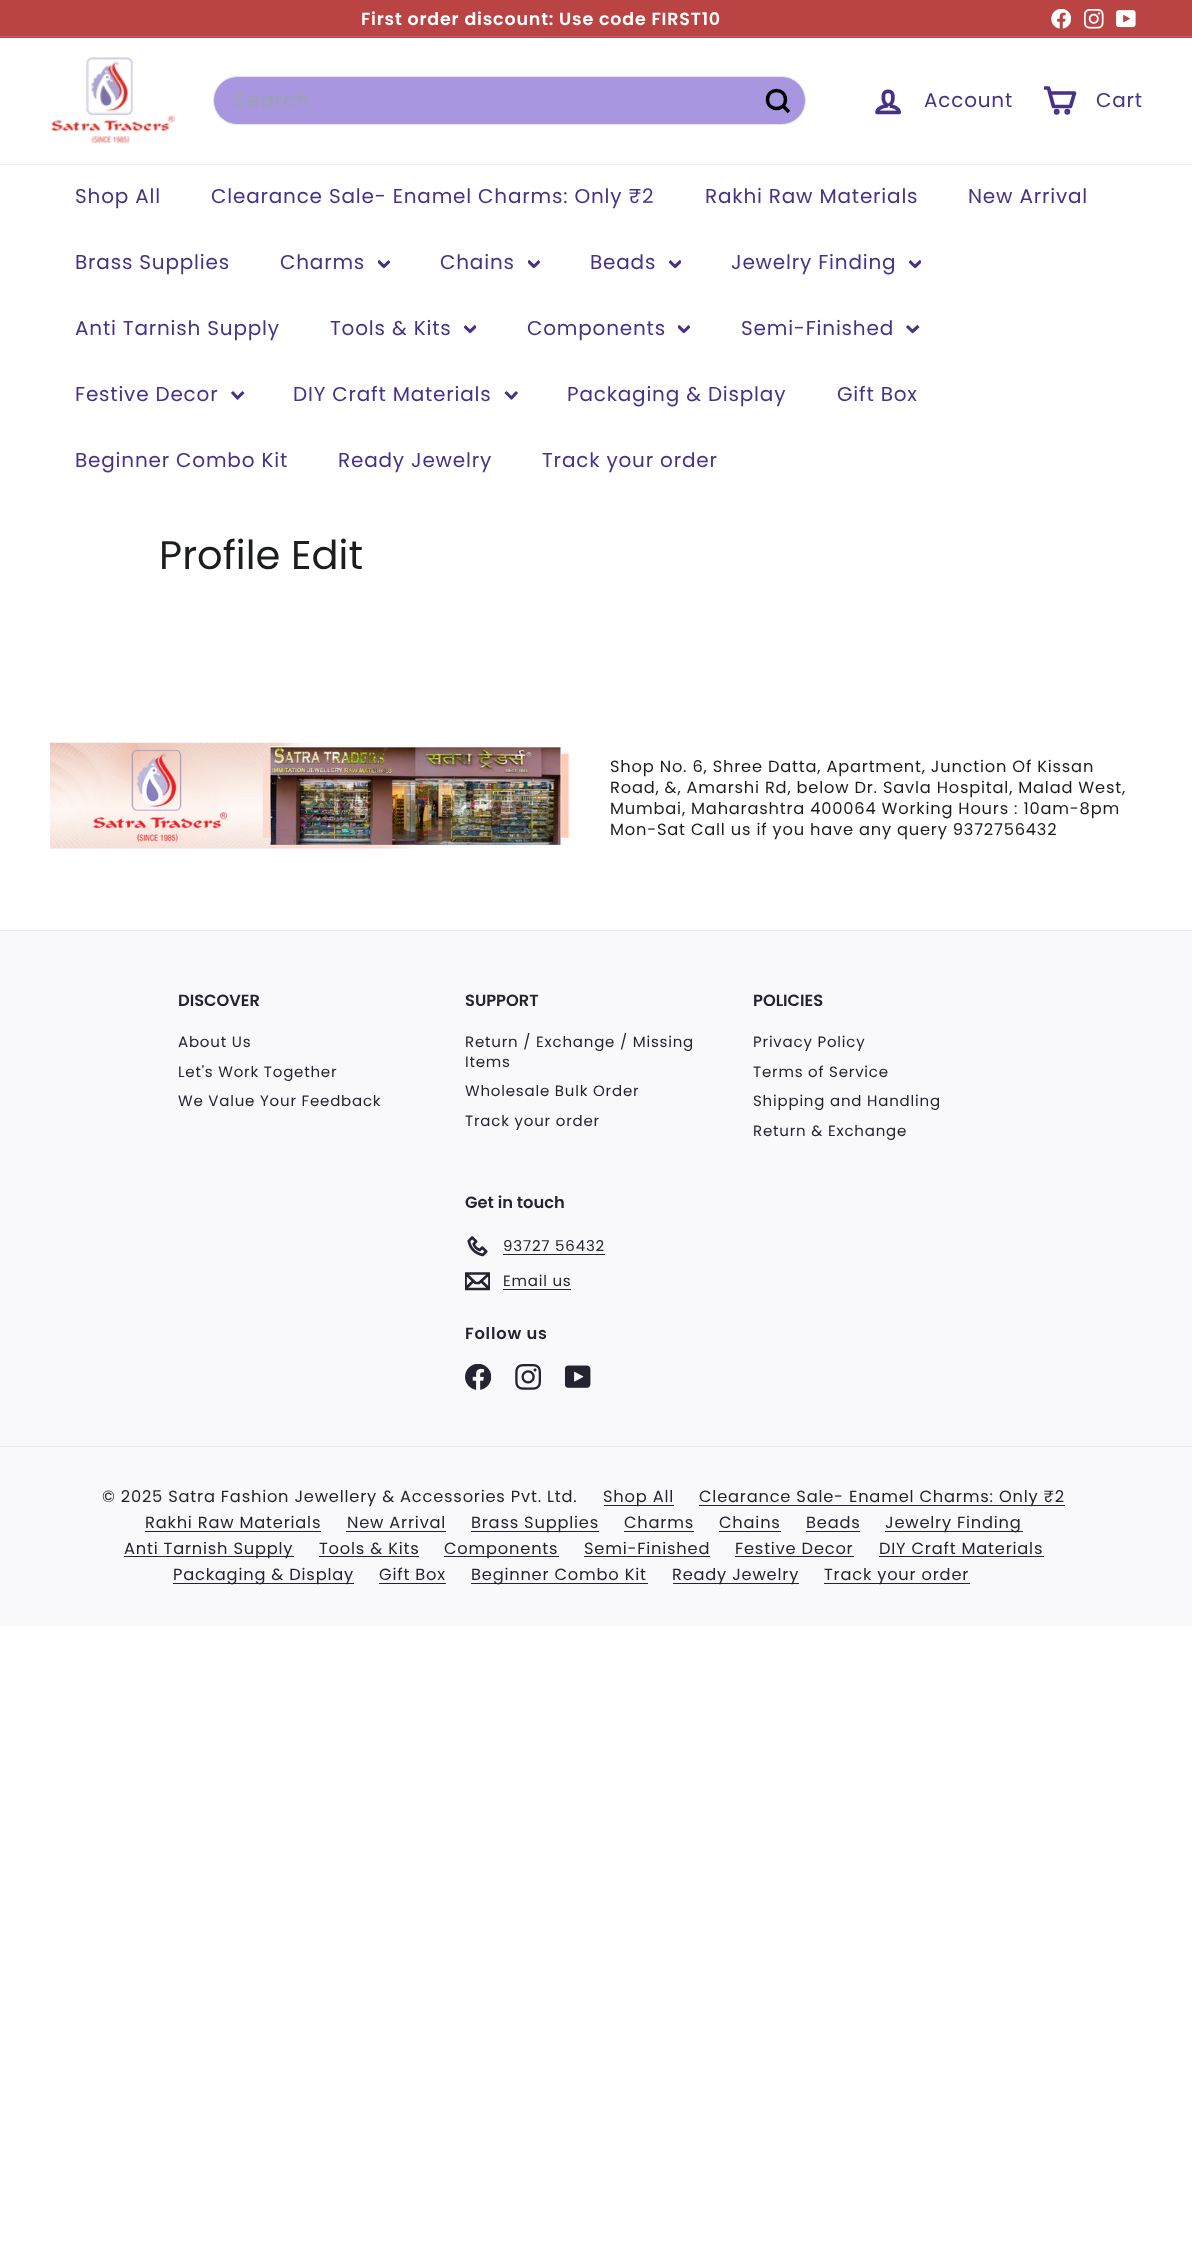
<!DOCTYPE html>
<meta charset="utf-8">
<style>body { margin: 0 } canvas { display: block }</style>
<canvas id="canvas" width="1192" height="2242"></canvas>
<img id="img1" src="images/1.png" hidden>
<img id="img2" src="images/2.png" hidden>
<img id="img3" src="images/3.png" hidden>
<img id="img4" src="images/4.png" hidden>
<img id="img5" src="images/5.png" hidden>
<img id="img6" src="images/6.png" hidden>
<img id="img7" src="images/7.png" hidden>
<img id="img8" src="images/8.png" hidden>
<img id="img9" src="images/9.png" hidden>
<img id="img10" src="images/10.png" hidden>
<script>
window.onload = function () {
    const canvas = document.getElementById('canvas');
    const context = canvas.getContext('2d');
    context.miterLimit = 4;
    context.fontKerning = 'normal';

    context.fillStyle = 'rgb(255, 255, 255)';
    context.fillRect(0, 0, 1192, 2242);
    context.fillStyle = 'rgb(186, 68, 68)';
    context.fillRect(0, 0, 1192, 38);
    context.drawImage(document.getElementById('img1'), 1051, 9, 20, 20);
    context.drawImage(document.getElementById('img2'), 1084, 9, 20, 20);
    context.drawImage(document.getElementById('img3'), 1116, 10, 20, 18);
    context.fillStyle = 'rgb(196, 96, 96)';
    context.fillRect(0, 36, 1192, 1);
    context.drawImage(document.getElementById('img4'), 51, 57, 124, 87);
    context.fillStyle = 'rgb(169, 150, 225)';
    context.beginPath();
    context.roundRect(213.5, 76.5, 592, 48, 24);
    context.fill();
    context.strokeStyle = 'rgb(232, 232, 225)';
    context.stroke();
    context.beginPath();
    context.moveTo(785.5, 99.5);
    context.bezierCurveTo(785.5, 111.5, 767.5, 111.5, 767.5, 99.5);
    context.bezierCurveTo(767.5, 87.5, 785.5, 87.5, 785.5, 99.5);
    context.moveTo(789, 112);
    context.lineTo(783, 106);
    context.strokeStyle = 'rgb(0, 0, 0)';
    context.lineWidth = 3.4;
    context.lineJoin = 'round';
    context.stroke();
    context.drawImage(document.getElementById('img5'), 875, 89, 26, 26);
    context.beginPath();
    context.moveTo(1050, 93);
    context.lineTo(1074.5, 93);
    context.lineTo(1070.5, 106.5);
    context.lineTo(1053.5, 106.5);
    context.lineTo(1048.5, 88);
    context.lineTo(1044, 88);
    context.strokeStyle = 'rgb(72, 50, 133)';
    context.lineWidth = 3.7;
    context.stroke();
    context.fillStyle = 'rgb(72, 50, 133)';
    context.beginPath();
    context.arc(1056.7, 111.7, 1.1, 0, 2 * Math.PI);
    context.fill();
    context.stroke();
    context.beginPath();
    context.arc(1067.3, 111.7, 1.1, 0, 2 * Math.PI);
    context.fill();
    context.stroke();
    context.fillStyle = 'rgb(237, 235, 243)';
    context.fillRect(0, 164, 1192, 1);
    context.save();
    context.beginPath();
    context.rect(378, 258, 12, 12);
    context.clip();
    context.beginPath();
    context.moveTo(378, 261);
    context.lineTo(384, 266.5);
    context.lineTo(389.5, 261);
    context.lineWidth = 3.1;
    context.stroke();
    context.restore();
    context.save();
    context.beginPath();
    context.rect(528, 258, 12, 12);
    context.clip();
    context.beginPath();
    context.moveTo(528, 261);
    context.lineTo(534, 266.5);
    context.lineTo(539.5, 261);
    context.lineWidth = 3.1;
    context.stroke();
    context.restore();
    context.save();
    context.beginPath();
    context.rect(669, 258, 12, 12);
    context.clip();
    context.beginPath();
    context.moveTo(669.5, 261);
    context.lineTo(675, 266.5);
    context.lineTo(681, 261);
    context.lineWidth = 3.1;
    context.stroke();
    context.restore();
    context.save();
    context.beginPath();
    context.rect(909, 258, 12, 12);
    context.clip();
    context.beginPath();
    context.moveTo(909.5, 261);
    context.lineTo(915, 266.5);
    context.lineTo(921, 261);
    context.lineWidth = 3.1;
    context.stroke();
    context.restore();
    context.save();
    context.beginPath();
    context.rect(464, 323, 12, 12);
    context.clip();
    context.beginPath();
    context.moveTo(464.5, 326);
    context.lineTo(470, 331.5);
    context.lineTo(476, 326);
    context.lineWidth = 3.1;
    context.stroke();
    context.restore();
    context.save();
    context.beginPath();
    context.rect(678, 323, 12, 12);
    context.clip();
    context.beginPath();
    context.moveTo(678, 326);
    context.lineTo(684, 331.5);
    context.lineTo(689.5, 326);
    context.lineWidth = 3.1;
    context.stroke();
    context.restore();
    context.beginPath();
    context.moveTo(907, 326);
    context.lineTo(912.5, 331.5);
    context.lineTo(918.5, 326);
    context.lineWidth = 3.1;
    context.stroke();
    context.beginPath();
    context.moveTo(232, 392);
    context.lineTo(237.5, 398);
    context.lineTo(243.5, 392);
    context.stroke();
    context.beginPath();
    context.moveTo(505.5, 392);
    context.lineTo(511.5, 398);
    context.lineTo(517, 392);
    context.stroke();
    context.drawImage(document.getElementById('img6'), 50, 742, 521, 107);
    context.fillStyle = 'rgb(249, 249, 251)';
    context.fillRect(0, 931, 1192, 695);
    context.fillStyle = 'rgb(231, 231, 231)';
    context.fillRect(0, 930, 1192, 1);
    context.drawImage(document.getElementById('img7'), 467, 1236, 21, 21);
    context.fillStyle = 'rgb(36, 36, 48)';
    context.fillRect(503, 1254, 102, 1);
    context.save();
    context.beginPath();
    context.rect(465, 1269, 25, 25);
    context.clip();
    context.beginPath();
    context.moveTo(489.5, 1289);
    context.lineTo(465.5, 1289);
    context.lineTo(465.5, 1273.5);
    context.lineTo(489.5, 1273.5);
    context.closePath();
    context.moveTo(465.5, 1273.5);
    context.lineTo(475.5, 1283);
    context.lineTo(479, 1283);
    context.lineTo(489.5, 1273.5);
    context.moveTo(473.5, 1281);
    context.lineTo(465.5, 1288.5);
    context.moveTo(489.5, 1289);
    context.lineTo(481, 1281);
    context.strokeStyle = 'rgb(36, 36, 48)';
    context.lineWidth = 2.7;
    context.stroke();
    context.restore();
    context.fillRect(503, 1289, 68, 1);
    context.drawImage(document.getElementById('img8'), 465, 1364, 26, 26);
    context.drawImage(document.getElementById('img9'), 515, 1364, 26, 26);
    context.drawImage(document.getElementById('img10'), 565, 1365, 26, 23);
    context.fillStyle = 'rgb(231, 231, 231)';
    context.fillRect(0, 1446, 1192, 1);
    context.fillStyle = 'rgb(36, 36, 48)';
    context.fillRect(604, 1505, 70, 1);
    context.fillRect(699, 1505, 366, 1);
    context.fillRect(145, 1531, 176, 1);
    context.fillRect(346, 1531, 100, 1);
    context.fillRect(471, 1531, 128, 1);
    context.fillRect(624, 1531, 70, 1);
    context.fillRect(719, 1531, 62, 1);
    context.fillRect(806, 1531, 54, 1);
    context.fillRect(885, 1531, 138, 1);
    context.fillRect(124, 1556, 170, 1);
    context.fillRect(319, 1556, 100, 1);
    context.fillRect(444, 1556, 115, 1);
    context.fillRect(584, 1556, 126, 1);
    context.fillRect(735, 1556, 119, 1);
    context.fillRect(879, 1556, 165, 1);
    context.fillRect(173, 1583, 181, 1);
    context.fillRect(379, 1583, 67, 1);
    context.fillRect(471, 1583, 177, 1);
    context.fillRect(673, 1583, 126, 1);
    context.fillRect(824, 1583, 146, 1);
    context.letterSpacing = '0.8px';
    context.font = '600 17.5px Poppins';
    context.fillStyle = 'rgb(255, 255, 255)';
    context.fillText('First order discount: Use code FIRST10', 361, 25);
    context.letterSpacing = '1px';
    context.font = '20px Poppins';
    context.fillStyle = 'rgb(156, 163, 175)';
    context.fillText('Search', 234, 107);
    context.letterSpacing = '0.8px';
    context.fillStyle = 'rgb(72, 50, 133)';
    context.fillText('Account', 924, 107);
    context.fillText('Cart', 1096, 107);
    context.fillText('Shop All', 75, 203);
    context.fillText('Clearance Sale- Enamel Charms: Only ₹2', 211, 203);
    context.fillText('Rakhi Raw Materials', 705, 203);
    context.fillText('New Arrival', 968, 203);
    context.fillText('Brass Supplies', 75, 269);
    context.fillText('Charms', 280, 269);
    context.fillText('Chains', 440, 269);
    context.fillText('Beads', 590, 269);
    context.fillText('Jewelry Finding', 731, 269);
    context.fillText('Anti Tarnish Supply', 75, 335);
    context.fillText('Tools & Kits', 330, 335);
    context.fillText('Components', 527, 335);
    context.fillText('Semi-Finished', 741, 335);
    context.fillText('Festive Decor', 75, 401);
    context.fillText('DIY Craft Materials', 293, 401);
    context.fillText('Packaging & Display', 567, 401);
    context.fillText('Gift Box', 837, 401);
    context.fillText('Beginner Combo Kit', 75, 467);
    context.fillText('Ready Jewelry', 338, 467);
    context.fillText('Track your order', 542, 467);
    context.letterSpacing = '0px';
    context.font = '40px Poppins';
    context.fillStyle = 'rgb(28, 29, 29)';
    context.fillText('Profile Edit', 159, 569);
    context.letterSpacing = '0.8px';
    context.font = '16.25px Poppins';
    context.fillText('Shop No. 6, Shree Datta, Apartment, Junction Of Kissan', 610, 772);
    context.fillText('Road, &, Amarshi Rd, below Dr. Savla Hospital, Malad West,', 610, 793);
    context.fillText('Mumbai, Maharashtra 400064 Working Hours : 10am-8pm', 610, 814);
    context.fillText('Mon-Sat Call us if you have any query 9372756432', 610, 835);
    context.letterSpacing = '0px';
    context.font = '600 16.25px Poppins';
    context.fillStyle = 'rgb(36, 36, 48)';
    context.fillText('DISCOVER', 178, 1006);
    context.letterSpacing = '0.8px';
    context.font = '15px Poppins';
    context.fillText('About Us', 178, 1047);
    context.fillText('Let\'s Work Together', 178, 1077);
    context.fillText('We Value Your Feedback', 178, 1106);
    context.letterSpacing = '0px';
    context.font = '600 16.25px Poppins';
    context.fillText('SUPPORT', 465, 1006);
    context.letterSpacing = '0.8px';
    context.font = '15px Poppins';
    context.fillText('Return / Exchange / Missing', 465, 1047);
    context.fillText('Items', 465, 1067);
    context.fillText('Wholesale Bulk Order', 465, 1096);
    context.fillText('Track your order', 465, 1126);
    context.letterSpacing = '0px';
    context.font = '600 16.25px Poppins';
    context.fillText('POLICIES', 753, 1006);
    context.letterSpacing = '0.8px';
    context.font = '15px Poppins';
    context.fillText('Privacy Policy', 753, 1047);
    context.fillText('Terms of Service', 753, 1077);
    context.fillText('Shipping and Handling', 753, 1106);
    context.fillText('Return & Exchange', 753, 1136);
    context.letterSpacing = '0px';
    context.font = '600 16.25px Poppins';
    context.fillText('Get in touch', 465, 1208);
    context.letterSpacing = '0.8px';
    context.font = '15px Poppins';
    context.fillText('93727 56432', 503, 1251);
    context.fillText('Email us', 503, 1286);
    context.font = '600 16.25px Poppins';
    context.fillText('Follow us', 465, 1339);
    context.font = '16.25px Poppins';
    context.fillText('© 2025 Satra Fashion Jewellery & Accessories Pvt. Ltd.', 102, 1502);
    context.fillText('Shop All', 603, 1502);
    context.fillText('Clearance Sale- Enamel Charms: Only ₹2', 699, 1502);
    context.fillText('Rakhi Raw Materials', 145, 1528);
    context.fillText('New Arrival', 347, 1528);
    context.fillText('Brass Supplies', 471, 1528);
    context.fillText('Charms', 624, 1528);
    context.fillText('Chains', 719, 1528);
    context.fillText('Beads', 806, 1528);
    context.fillText('Jewelry Finding', 885, 1528);
    context.fillText('Anti Tarnish Supply', 124, 1554);
    context.fillText('Tools & Kits', 319, 1554);
    context.fillText('Components', 444, 1554);
    context.fillText('Semi-Finished', 584, 1554);
    context.fillText('Festive Decor', 735, 1554);
    context.fillText('DIY Craft Materials', 879, 1554);
    context.fillText('Packaging & Display', 173, 1580);
    context.fillText('Gift Box', 379, 1580);
    context.fillText('Beginner Combo Kit', 471, 1580);
    context.fillText('Ready Jewelry', 672, 1580);
    context.fillText('Track your order', 824, 1580);
};
</script>
